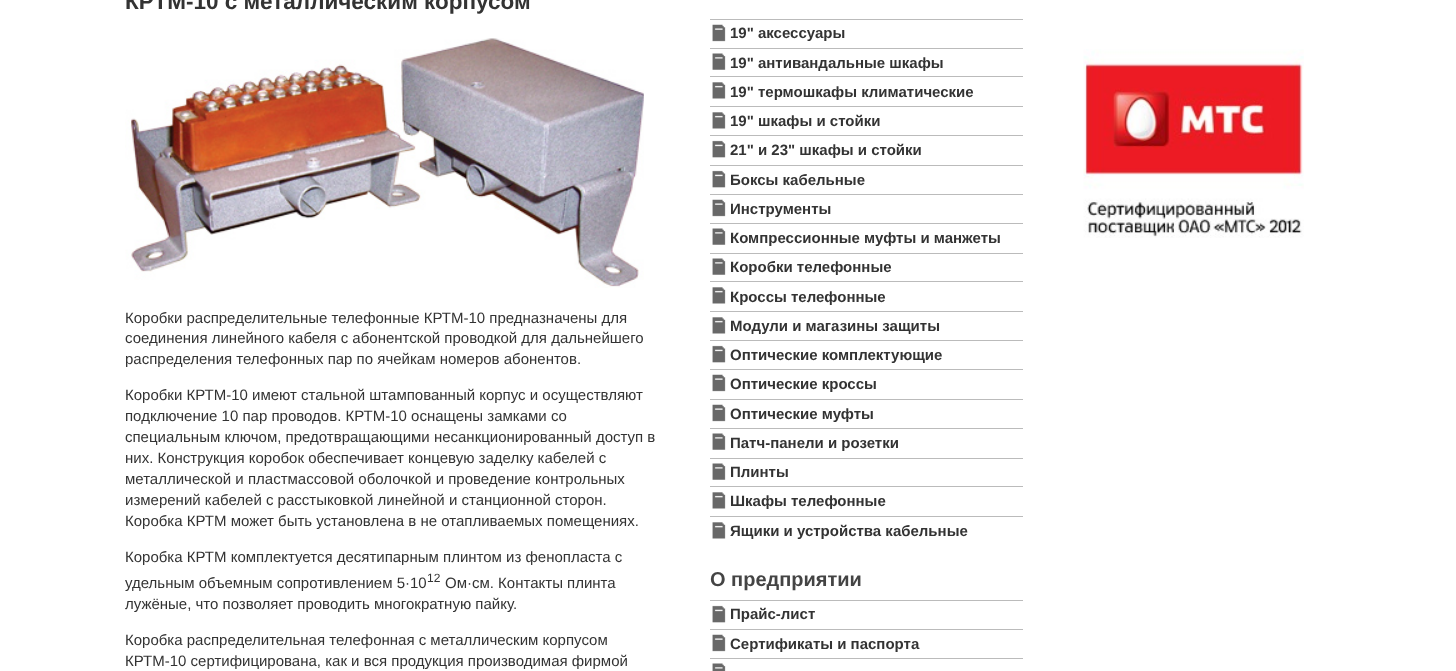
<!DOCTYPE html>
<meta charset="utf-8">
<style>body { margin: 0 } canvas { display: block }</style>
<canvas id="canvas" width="1456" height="671"></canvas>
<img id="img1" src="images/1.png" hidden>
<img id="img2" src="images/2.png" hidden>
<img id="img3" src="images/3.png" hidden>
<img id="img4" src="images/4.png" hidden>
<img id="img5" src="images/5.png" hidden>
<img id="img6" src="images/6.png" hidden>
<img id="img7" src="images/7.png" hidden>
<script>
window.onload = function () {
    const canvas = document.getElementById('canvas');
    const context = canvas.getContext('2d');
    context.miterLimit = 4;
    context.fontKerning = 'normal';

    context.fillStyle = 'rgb(255, 255, 255)';
    context.fillRect(0, 0, 1456, 671);
    context.drawImage(document.getElementById('img1'), 125, 38, 519, 250);
    context.drawImage(document.getElementById('img2'), 712, 24, 14, 18);
    context.fillStyle = 'rgb(187, 187, 187)';
    context.fillRect(710, 19, 313, 1);
    context.drawImage(document.getElementById('img3'), 712, 53, 14, 17);
    context.fillRect(710, 48, 313, 1);
    context.drawImage(document.getElementById('img4'), 712, 82, 14, 17);
    context.fillRect(710, 76, 313, 1);
    context.drawImage(document.getElementById('img4'), 712, 112, 14, 17);
    context.fillRect(710, 106, 313, 1);
    context.drawImage(document.getElementById('img5'), 712, 140, 14, 18);
    context.fillRect(710, 135, 313, 1);
    context.drawImage(document.getElementById('img5'), 712, 170, 14, 18);
    context.fillRect(710, 165, 313, 1);
    context.drawImage(document.getElementById('img2'), 712, 199, 14, 18);
    context.fillRect(710, 194, 313, 1);
    context.drawImage(document.getElementById('img3'), 712, 228, 14, 17);
    context.fillRect(710, 223, 313, 1);
    context.drawImage(document.getElementById('img3'), 712, 258, 14, 17);
    context.fillRect(710, 253, 313, 1);
    context.drawImage(document.getElementById('img4'), 712, 287, 14, 17);
    context.fillRect(710, 281, 313, 1);
    context.drawImage(document.getElementById('img4'), 712, 317, 14, 17);
    context.fillRect(710, 311, 313, 1);
    context.drawImage(document.getElementById('img5'), 712, 345, 14, 18);
    context.fillRect(710, 340, 313, 1);
    context.drawImage(document.getElementById('img2'), 712, 374, 14, 18);
    context.fillRect(710, 369, 313, 1);
    context.drawImage(document.getElementById('img2'), 712, 404, 14, 18);
    context.fillRect(710, 399, 313, 1);
    context.drawImage(document.getElementById('img3'), 712, 433, 14, 17);
    context.fillRect(710, 428, 313, 1);
    context.drawImage(document.getElementById('img3'), 712, 463, 14, 17);
    context.fillRect(710, 458, 313, 1);
    context.drawImage(document.getElementById('img4'), 712, 492, 14, 17);
    context.fillRect(710, 486, 313, 1);
    context.drawImage(document.getElementById('img4'), 712, 522, 14, 17);
    context.fillRect(710, 516, 313, 1);
    context.drawImage(document.getElementById('img5'), 712, 605, 14, 18);
    context.fillRect(710, 600, 313, 1);
    context.drawImage(document.getElementById('img2'), 712, 634, 14, 18);
    context.fillRect(710, 629, 313, 1);
    context.drawImage(document.getElementById('img6'), 712, 663, 14, 8);
    context.fillRect(710, 658, 313, 1);
    context.drawImage(document.getElementById('img7'), 1083, 49, 221, 189);
    context.font = 'bold 22.5px Liberation Sans';
    context.fillStyle = 'rgb(51, 51, 51)';
    context.fillText('КРТМ-10 с металлическим корпусом', 125, 9);
    context.font = '15px Liberation Sans';
    context.fillText('Коробки распределительные телефонные КРТМ-10 предназначены для', 125, 323);
    context.fillText('соединения линейного кабеля с абонентской проводкой для дальнейшего', 125, 343);
    context.fillText('распределения телефонных пар по ячейкам номеров абонентов.', 125, 364);
    context.fillText('Коробки КРТМ-10 имеют стальной штампованный корпус и осуществляют', 125, 400);
    context.fillText('подключение 10 пар проводов. КРТМ-10 оснащены замками со', 125, 421);
    context.fillText('специальным ключом, предотвращающими несанкционированный доступ в', 125, 442);
    context.fillText('них. Конструкция коробок обеспечивает концевую заделку кабелей с', 125, 463);
    context.fillText('металлической и пластмассовой оболочкой и проведение контрольных', 125, 484);
    context.fillText('измерений кабелей с расстыковкой линейной и станционной сторон.', 125, 505);
    context.fillText('Коробка КРТМ может быть установлена в не отапливаемых помещениях.', 125, 526);
    context.fillText('Коробка КРТМ комплектуется десятипарным плинтом из фенопласта с', 125, 562);
    context.fillText('удельным объемным сопротивлением 5·10', 125, 588);
    context.font = '12px Liberation Sans';
    context.fillText('12', 427, 582);
    context.font = '15px Liberation Sans';
    context.fillText('Ом·см. Контакты плинта', 445, 588);
    context.fillText('лужёные, что позволяет проводить многократную пайку.', 125, 609);
    context.fillText('Коробка распределительная телефонная с металлическим корпусом', 125, 645);
    context.fillText('КРТМ-10 сертифицирована, как и вся продукция производимая фирмой', 125, 666);
    context.font = 'bold 15px Liberation Sans';
    context.fillText('19" аксессуары', 730, 38);
    context.fillText('19" антивандальные шкафы', 730, 68);
    context.fillText('19" термошкафы климатические', 730, 97);
    context.fillText('19" шкафы и стойки', 730, 126);
    context.fillText('21" и 23" шкафы и стойки', 730, 155);
    context.fillText('Боксы кабельные', 730, 185);
    context.fillText('Инструменты', 730, 214);
    context.fillText('Компрессионные муфты и манжеты', 730, 243);
    context.fillText('Коробки телефонные', 730, 272);
    context.fillText('Кроссы телефонные', 730, 302);
    context.fillText('Модули и магазины защиты', 730, 331);
    context.fillText('Оптические комплектующие', 730, 360);
    context.fillText('Оптические кроссы', 730, 389);
    context.fillText('Оптические муфты', 730, 419);
    context.fillText('Патч-панели и розетки', 730, 448);
    context.fillText('Плинты', 730, 477);
    context.fillText('Шкафы телефонные', 730, 506);
    context.fillText('Ящики и устройства кабельные', 730, 536);
    context.font = 'bold 20px Liberation Sans';
    context.fillStyle = 'rgb(68, 68, 68)';
    context.fillText('О предприятии', 710, 586);
    context.font = 'bold 15px Liberation Sans';
    context.fillStyle = 'rgb(51, 51, 51)';
    context.fillText('Прайс-лист', 730, 619);
    context.fillText('Сертификаты и паспорта', 730, 649);
};
</script>
